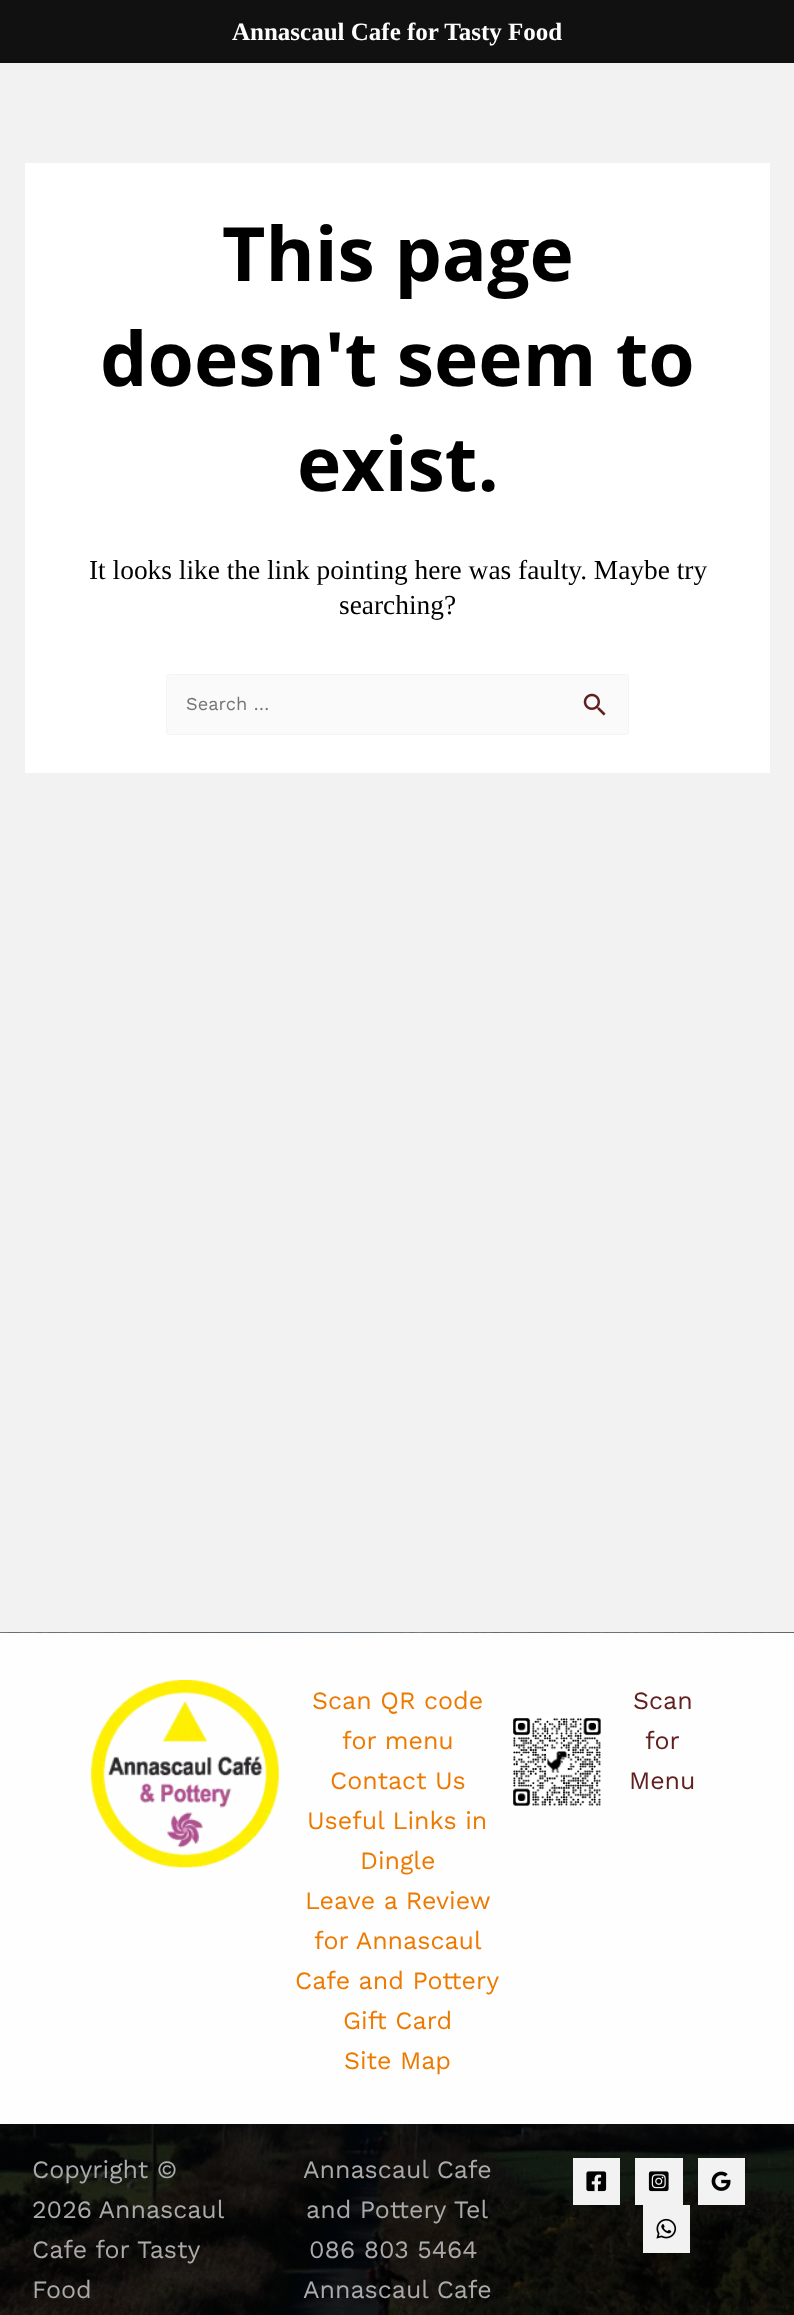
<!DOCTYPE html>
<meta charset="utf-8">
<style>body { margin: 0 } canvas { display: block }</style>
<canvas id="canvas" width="794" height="2315"></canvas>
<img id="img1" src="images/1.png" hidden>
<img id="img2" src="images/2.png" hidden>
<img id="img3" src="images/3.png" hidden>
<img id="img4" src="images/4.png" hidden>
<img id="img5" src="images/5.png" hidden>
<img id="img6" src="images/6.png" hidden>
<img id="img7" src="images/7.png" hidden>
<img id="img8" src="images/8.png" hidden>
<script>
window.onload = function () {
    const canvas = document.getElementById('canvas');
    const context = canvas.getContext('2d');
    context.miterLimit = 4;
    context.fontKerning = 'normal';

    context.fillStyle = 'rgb(242, 242, 242)';
    context.fillRect(0, 0, 794, 2315);
    context.fillStyle = 'rgb(17, 17, 17)';
    context.fillRect(0, 0, 794, 63);
    context.fillStyle = 'rgb(255, 255, 255)';
    context.fillRect(25, 163, 745, 610);
    context.fillStyle = 'rgb(250, 250, 250)';
    context.beginPath();
    context.roundRect(166.5, 674.5, 462, 60, 2);
    context.fill();
    context.strokeStyle = 'rgb(242, 245, 247)';
    context.stroke();
    context.drawImage(document.getElementById('img1'), 583, 693, 23, 23);
    context.drawImage(document.getElementById('img2'), 0, 1632, 794, 683);
    context.fillStyle = 'rgb(255, 254, 254)';
    context.fillRect(0, 1633, 794, 491);
    context.drawImage(document.getElementById('img3'), 91, 1680, 188, 188);
    context.drawImage(document.getElementById('img4'), 513, 1718, 88, 88);
    context.fillStyle = 'rgb(242, 242, 242)';
    context.fillRect(573, 2158, 47, 47);
    context.drawImage(document.getElementById('img5'), 586, 2171, 21, 21);
    context.fillRect(635, 2158, 48, 47);
    context.drawImage(document.getElementById('img6'), 648, 2171, 21, 21);
    context.fillRect(698, 2158, 47, 47);
    context.drawImage(document.getElementById('img7'), 711, 2171, 20, 20);
    context.fillRect(643, 2205, 47, 48);
    context.drawImage(document.getElementById('img8'), 656, 2218, 21, 21);
    context.font = 'bold 25px Liberation Serif';
    context.fillStyle = 'rgb(255, 255, 255)';
    context.fillText('Annascaul Cafe for Tasty Food', 232, 40);
    context.font = 'bold 75px Open Sans';
    context.fillStyle = 'rgb(0, 0, 0)';
    context.fillText('This page', 222, 281);
    context.fillText('doesn\'t seem to', 100, 386);
    context.fillText('exist.', 297, 491);
    context.font = '27.4px Liberation Serif';
    context.fillText('It looks like the link pointing here was faulty. Maybe try', 89, 579);
    context.fillText('searching?', 339, 614);
    context.font = '18.25px Work Sans';
    context.fillStyle = 'rgb(117, 117, 117)';
    context.fillText('Search …', 186, 710);
    context.font = '25px Work Sans';
    context.fillStyle = 'rgb(237, 122, 0)';
    context.fillText('Scan QR code', 312, 1709);
    context.fillText('for menu', 342, 1749);
    context.fillText('Contact Us', 330, 1789);
    context.fillText('Useful Links in', 307, 1829);
    context.fillText('Dingle', 360, 1869);
    context.fillText('Leave a Review', 305, 1909);
    context.fillText('for Annascaul', 314, 1949);
    context.fillText('Cafe and Pottery', 295, 1989);
    context.fillText('Gift Card', 343, 2029);
    context.fillText('Site Map', 344, 2069);
    context.fillStyle = 'rgb(97, 32, 32)';
    context.fillText('Scan', 633, 1709);
    context.fillText('for', 645, 1749);
    context.fillText('Menu', 629, 1789);
    context.fillStyle = 'rgb(170, 170, 170)';
    context.fillText('Copyright ©', 32, 2178);
    context.wordSpacing = '-1px';
    context.fillText('2026 Annascaul', 32, 2218);
    context.wordSpacing = '0px';
    context.fillText('Cafe for Tasty', 32, 2258);
    context.fillText('Food', 32, 2298);
    context.fillText('Annascaul Cafe', 303, 2178);
    context.fillText('and Pottery Tel', 306, 2218);
    context.fillText('086 803 5464', 309, 2258);
    context.fillText('Annascaul Cafe', 303, 2298);
};
</script>
